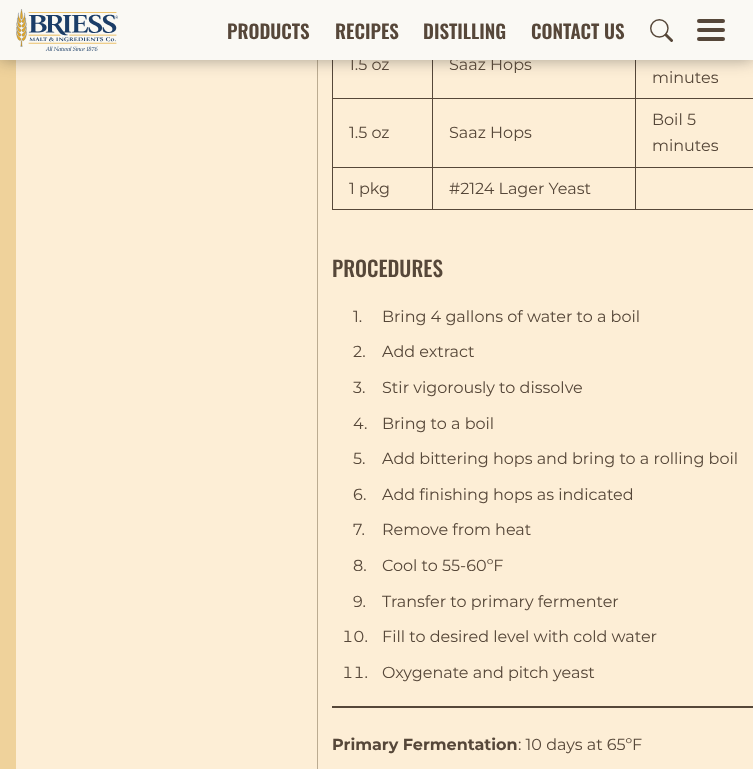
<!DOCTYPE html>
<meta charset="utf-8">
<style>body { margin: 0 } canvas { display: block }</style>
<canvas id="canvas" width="753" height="769"></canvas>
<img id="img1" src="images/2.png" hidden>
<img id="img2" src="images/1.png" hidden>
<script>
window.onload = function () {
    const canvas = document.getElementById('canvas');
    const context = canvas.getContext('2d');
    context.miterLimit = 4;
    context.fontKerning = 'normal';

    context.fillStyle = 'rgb(239, 210, 155)';
    context.fillRect(0, 0, 753, 769);
    context.fillStyle = 'rgb(253, 238, 214)';
    context.fillRect(16, 60, 737, 709);
    context.fillStyle = 'rgb(187, 171, 145)';
    context.fillRect(317, 60, 1, 709);
    context.fillStyle = 'rgb(86, 71, 57)';
    context.fillRect(635, 98, 118, 1);
    context.fillRect(635, 167, 118, 1);
    context.fillRect(635, 209, 118, 1);
    context.fillRect(635, 167, 1, 43);
    context.fillRect(432, 167, 204, 1);
    context.fillRect(635, 98, 1, 70);
    context.fillRect(432, 98, 204, 1);
    context.fillRect(432, 209, 204, 1);
    context.fillRect(432, 167, 1, 43);
    context.fillRect(332, 167, 101, 1);
    context.fillRect(432, 98, 1, 70);
    context.fillRect(332, 98, 101, 1);
    context.fillRect(432, 60, 1, 39);
    context.fillRect(635, 60, 1, 39);
    context.fillRect(332, 209, 101, 1);
    context.fillRect(332, 167, 1, 43);
    context.fillRect(332, 60, 1, 108);
    context.fillStyle = 'rgba(34, 34, 34, 0.4)';
    context.filter = 'blur(8px)';
    context.beginPath();
    context.rect(0, 0, 753, 60);
    context.fill();
    context.filter = 'none';
    context.fillStyle = 'rgb(86, 71, 57)';
    context.fillRect(332, 706, 421, 2);
    context.font = '16px Montserrat';
    context.fillText('1.5 oz', 349, 70);
    context.fillText('Saaz Hops', 449, 70);
    context.fillStyle = 'rgb(250, 249, 244)';
    context.fillRect(0, 0, 753, 60);
    context.fillStyle = 'rgb(86, 71, 57)';
    context.beginPath();
    context.roundRect(697, 37, 28, 4, 2);
    context.fill();
    context.beginPath();
    context.roundRect(697, 28, 28, 4, 2);
    context.fill();
    context.beginPath();
    context.roundRect(697, 19, 28, 4, 2);
    context.fill();
    context.drawImage(document.getElementById('img1'), 650, 19, 23, 23);
    context.font = '600 19px Oswald';
    context.fillText('CONTACT US', 531, 39);
    context.fillText('DISTILLING', 423, 39);
    context.fillText('RECIPES', 335, 39);
    context.fillText('PRODUCTS', 227, 39);
    context.drawImage(document.getElementById('img2'), 16, 9, 102, 42);
    context.font = '16px Montserrat';
    context.fillText('minutes', 652, 83);
    context.fillText('1.5 oz', 349, 138);
    context.fillText('Saaz Hops', 449, 138);
    context.fillText('Boil 5', 652, 125);
    context.fillText('minutes', 652, 151);
    context.fillText('1 pkg', 349, 194);
    context.fillText('#2124 Lager Yeast', 449, 194);
    context.font = '500 21.25px Oswald';
    context.fillText('PROCEDURES', 332, 277);
    context.font = '16px Montserrat';
    context.fillText('1.', 353, 322);
    context.fillText('Bring 4 gallons of water to a boil', 382, 322);
    context.fillText('2.', 353, 357);
    context.fillText('Add extract', 382, 357);
    context.fillText('3.', 353, 393);
    context.fillText('Stir vigorously to dissolve', 382, 393);
    context.fillText('4.', 353, 429);
    context.fillText('Bring to a boil', 382, 429);
    context.fillText('5.', 353, 464);
    context.fillText('Add bittering hops and bring to a rolling boil', 382, 464);
    context.fillText('6.', 353, 500);
    context.fillText('Add finishing hops as indicated', 382, 500);
    context.fillText('7.', 353, 535);
    context.fillText('Remove from heat', 382, 535);
    context.fillText('8.', 353, 571);
    context.fillText('Cool to 55-60ºF', 382, 571);
    context.fillText('9.', 353, 607);
    context.fillText('Transfer to primary fermenter', 382, 607);
    context.font = '16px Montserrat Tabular';
    context.fillText('10.', 342, 642);
    context.font = '16px Montserrat';
    context.fillText('Fill to desired level with cold water', 382, 642);
    context.font = '16px Montserrat Tabular';
    context.fillText('11.', 342, 678);
    context.font = '16px Montserrat';
    context.fillText('Oxygenate and pitch yeast', 382, 678);
    context.font = 'bold 16px Montserrat';
    context.fillText('Primary Fermentation', 332, 750);
    context.font = '16px Montserrat';
    context.fillText(': 10 days at 65ºF', 518, 750);
};
</script>
